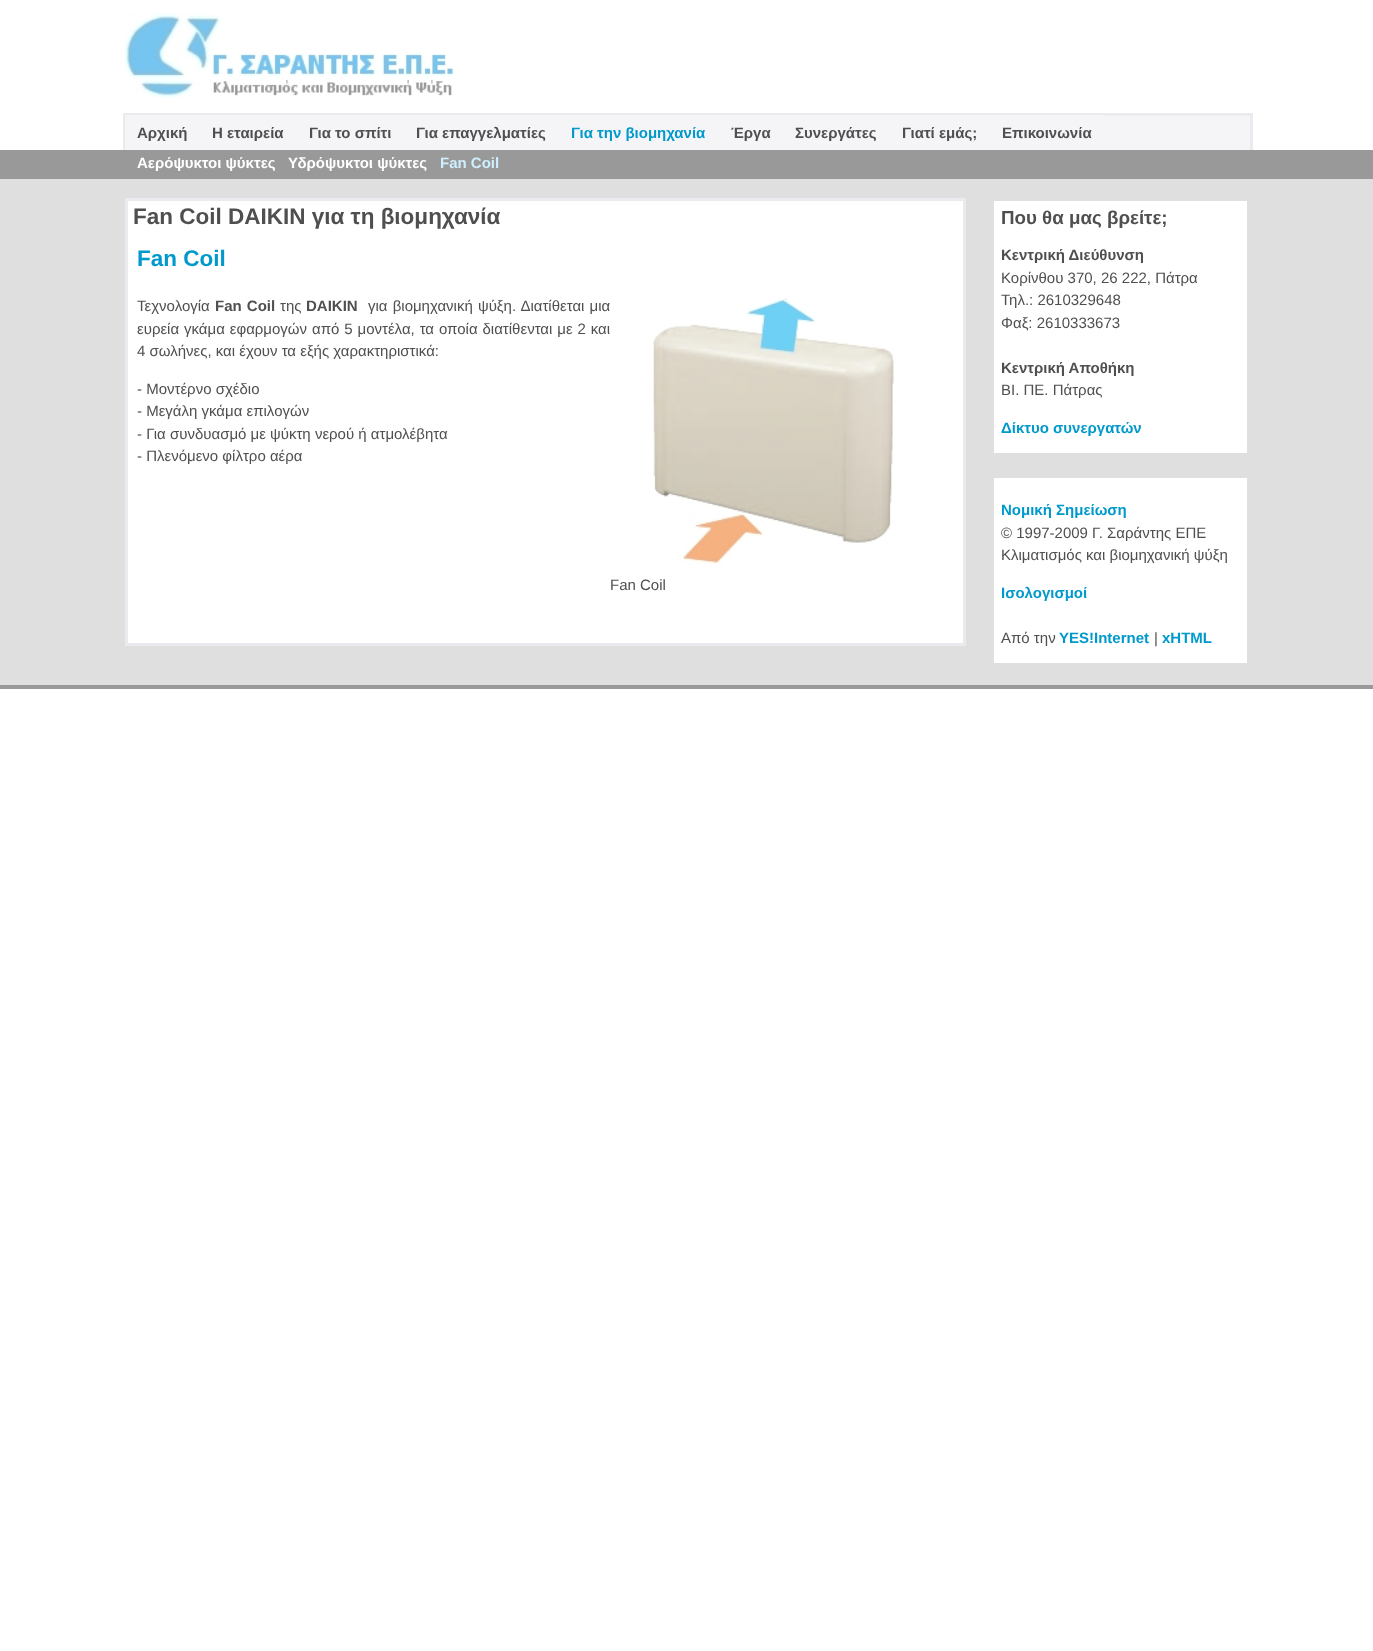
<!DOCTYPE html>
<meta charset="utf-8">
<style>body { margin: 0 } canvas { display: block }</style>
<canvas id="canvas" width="1373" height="1651"></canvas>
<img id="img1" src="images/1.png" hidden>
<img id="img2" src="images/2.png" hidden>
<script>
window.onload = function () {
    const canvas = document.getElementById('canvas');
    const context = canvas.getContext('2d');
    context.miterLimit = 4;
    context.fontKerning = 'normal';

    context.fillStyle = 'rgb(255, 255, 255)';
    context.fillRect(0, 0, 1373, 1651);
    context.drawImage(document.getElementById('img1'), 125, 13, 329, 85);
    context.fillStyle = 'rgb(245, 245, 248)';
    context.fillRect(1104, 116, 146, 34);
    context.fillStyle = 'rgb(234, 235, 238)';
    context.fillRect(123, 113, 1130, 3);
    context.fillRect(1250, 113, 3, 37);
    context.fillRect(123, 113, 3, 37);
    context.fillStyle = 'rgb(245, 245, 248)';
    context.fillRect(125, 115, 979, 35);
    context.fillStyle = 'rgb(153, 153, 153)';
    context.fillRect(0, 150, 1373, 29);
    context.fillStyle = 'rgb(223, 223, 223)';
    context.fillRect(0, 179, 1373, 506);
    context.fillStyle = 'rgb(255, 255, 255)';
    context.beginPath();
    context.rect(126.5, 199.5, 838, 445);
    context.fill();
    context.strokeStyle = 'rgb(234, 235, 238)';
    context.lineWidth = 3;
    context.stroke();
    context.drawImage(document.getElementById('img2'), 652, 298, 242, 266);
    context.fillRect(994, 201, 253, 252);
    context.fillRect(994, 478, 253, 185);
    context.fillStyle = 'rgb(153, 153, 153)';
    context.fillRect(0, 685, 1373, 4);
    context.font = 'bold 15px Liberation Sans';
    context.fillStyle = 'rgb(79, 79, 79)';
    context.fillText('Αρχική', 137, 138);
    context.fillText('Η εταιρεία', 212, 138);
    context.fillText('Για το σπίτι', 309, 138);
    context.fillText('Για επαγγελματίες', 416, 138);
    context.fillStyle = 'rgb(0, 153, 204)';
    context.fillText('Για την βιομηχανία', 571, 138);
    context.fillStyle = 'rgb(79, 79, 79)';
    context.fillText('Έργα', 731, 138);
    context.fillText('Συνεργάτες', 795, 138);
    context.fillText('Γιατί εμάς;', 902, 138);
    context.fillText('Επικοινωνία', 1002, 138);
    context.fillStyle = 'rgb(255, 255, 255)';
    context.fillText('Αερόψυκτοι ψύκτες', 137, 168);
    context.fillText('Υδρόψυκτοι ψύκτες', 288, 168);
    context.fillStyle = 'rgb(207, 239, 255)';
    context.fillText('Fan Coil', 440, 168);
    context.font = 'bold 22.5px Liberation Sans';
    context.fillStyle = 'rgb(79, 79, 79)';
    context.fillText('Fan Coil DAIKIN για τη βιομηχανία', 133, 224);
    context.fillStyle = 'rgb(0, 153, 204)';
    context.fillText('Fan Coil', 137, 266);
    context.font = '15px Liberation Sans';
    context.fillStyle = 'rgb(79, 79, 79)';
    context.fillText('Τεχνολογία', 137, 311);
    context.wordSpacing = '1px';
    context.font = 'bold 15px Liberation Sans';
    context.fillText('Fan Coil', 215, 311);
    context.wordSpacing = '0px';
    context.font = '15px Liberation Sans';
    context.fillText('της', 280, 311);
    context.font = 'bold 15px Liberation Sans';
    context.fillText('DΑΙΚΙΝ', 306, 311);
    context.wordSpacing = '1px';
    context.font = '15px Liberation Sans';
    context.fillText('για βιομηχανική ψύξη. Διατίθεται μια', 368, 311);
    context.wordSpacing = '0.75px';
    context.fillText('ευρεία γκάμα εφαρμογών από 5 μοντέλα, τα οποία διατίθενται με 2 και', 137, 334);
    context.wordSpacing = '0px';
    context.fillText('4 σωλήνες, και έχουν τα εξής χαρακτηριστικά:', 137, 356);
    context.fillText('Fan Coil', 610, 590);
    context.fillText('- Μοντέρνο σχέδιο', 137, 394);
    context.fillText('- Μεγάλη γκάμα επιλογών', 137, 416);
    context.fillText('- Για συνδυασμό με ψύκτη νερού ή ατμολέβητα', 137, 439);
    context.fillText('- Πλενόμενο φίλτρο αέρα', 137, 461);
    context.font = 'bold 18.75px Liberation Sans';
    context.fillText('Που θα μας βρείτε;', 1001, 224);
    context.font = 'bold 15px Liberation Sans';
    context.fillText('Κεντρική Διεύθυνση', 1001, 260);
    context.font = '15px Liberation Sans';
    context.fillText('Κορίνθου 370, 26 222, Πάτρα', 1001, 283);
    context.fillText('Τηλ.: 2610329648', 1001, 305);
    context.fillText('Φαξ: 2610333673', 1001, 328);
    context.font = 'bold 15px Liberation Sans';
    context.fillText('Κεντρική Αποθήκη', 1001, 373);
    context.font = '15px Liberation Sans';
    context.fillText('ΒΙ. ΠΕ. Πάτρας', 1001, 395);
    context.font = 'bold 15px Liberation Sans';
    context.fillStyle = 'rgb(0, 153, 204)';
    context.fillText('Δίκτυο συνεργατών', 1001, 433);
    context.fillText('Νομική Σημείωση', 1001, 515);
    context.font = '15px Liberation Sans';
    context.fillStyle = 'rgb(79, 79, 79)';
    context.fillText('© 1997-2009 Γ. Σαράντης ΕΠΕ', 1001, 538);
    context.fillText('Κλιματισμός και βιομηχανική ψύξη', 1001, 560);
    context.font = 'bold 15px Liberation Sans';
    context.fillStyle = 'rgb(0, 153, 204)';
    context.fillText('Ισολογισμοί', 1001, 598);
    context.font = '15px Liberation Sans';
    context.fillStyle = 'rgb(79, 79, 79)';
    context.fillText('Από την', 1001, 643);
    context.font = 'bold 15px Liberation Sans';
    context.fillStyle = 'rgb(0, 153, 204)';
    context.fillText('YES!Internet', 1059, 643);
    context.font = '15px Liberation Sans';
    context.fillStyle = 'rgb(79, 79, 79)';
    context.fillText('|', 1154, 643);
    context.font = 'bold 15px Liberation Sans';
    context.fillStyle = 'rgb(0, 153, 204)';
    context.fillText('xHTML', 1162, 643);
};
</script>
